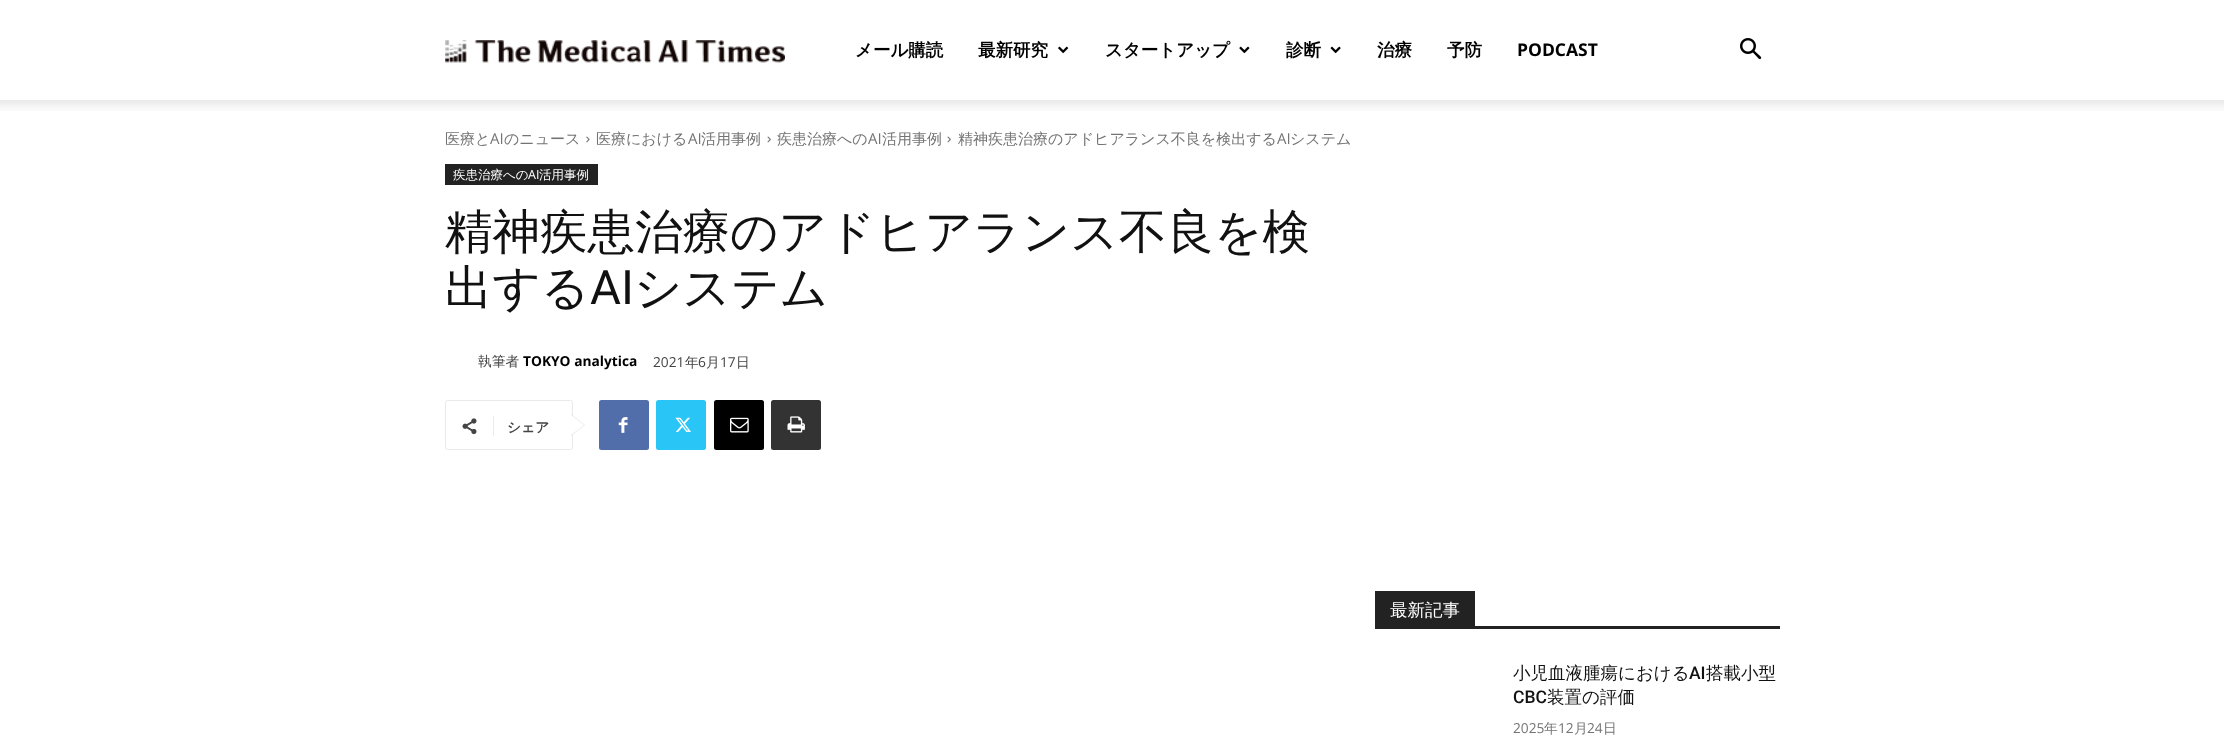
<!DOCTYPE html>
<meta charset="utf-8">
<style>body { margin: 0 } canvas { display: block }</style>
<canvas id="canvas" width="2224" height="740"></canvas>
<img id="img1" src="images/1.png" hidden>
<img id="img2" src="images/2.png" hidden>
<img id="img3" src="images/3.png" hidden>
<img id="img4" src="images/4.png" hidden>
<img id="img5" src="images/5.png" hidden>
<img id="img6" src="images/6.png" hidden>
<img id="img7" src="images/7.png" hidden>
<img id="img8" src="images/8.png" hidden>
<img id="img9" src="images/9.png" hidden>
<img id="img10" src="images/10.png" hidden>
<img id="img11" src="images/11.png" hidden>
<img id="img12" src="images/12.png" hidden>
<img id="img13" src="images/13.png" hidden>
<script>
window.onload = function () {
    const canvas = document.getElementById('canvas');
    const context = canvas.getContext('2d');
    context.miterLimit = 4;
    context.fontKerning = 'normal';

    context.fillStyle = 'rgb(255, 255, 255)';
    context.fillRect(0, 0, 2224, 740);
    context.drawImage(document.getElementById('img1'), 445, 40, 340, 23);
    context.drawImage(document.getElementById('img2'), 1058, 46, 11, 8);
    context.drawImage(document.getElementById('img3'), 1239, 46, 11, 8);
    context.drawImage(document.getElementById('img4'), 1330, 46, 11, 8);
    context.drawImage(document.getElementById('img5'), 1740, 38, 22, 22);
    context.drawImage(document.getElementById('img6'), 0, 100, 2224, 11);
    context.drawImage(document.getElementById('img7'), 586, 136, 4, 7);
    context.drawImage(document.getElementById('img8'), 767, 136, 4, 7);
    context.drawImage(document.getElementById('img8'), 947, 136, 4, 7);
    context.fillStyle = 'rgb(34, 34, 34)';
    context.fillRect(445, 164, 153, 21);
    context.beginPath();
    context.roundRect(445.5, 400.5, 127, 49, 2);
    context.strokeStyle = 'rgb(233, 233, 233)';
    context.stroke();
    context.fillStyle = 'rgb(233, 233, 233)';
    context.beginPath();
    context.moveTo(571, 436);
    context.lineTo(571, 414);
    context.lineTo(585, 425);
    context.closePath();
    context.fill();
    context.drawImage(document.getElementById('img9'), 462, 418, 15, 17);
    context.fillStyle = 'rgb(235, 235, 235)';
    context.fillRect(493, 416, 1, 20);
    context.fillStyle = 'rgb(255, 255, 255)';
    context.beginPath();
    context.moveTo(571, 435);
    context.lineTo(571, 415);
    context.lineTo(584, 425);
    context.closePath();
    context.fill();
    context.fillStyle = 'rgb(81, 110, 171)';
    context.beginPath();
    context.roundRect(599, 400, 50, 50, 2.5);
    context.fill();
    context.drawImage(document.getElementById('img10'), 618, 417, 10, 16);
    context.fillStyle = 'rgb(41, 197, 246)';
    context.beginPath();
    context.roundRect(656, 400, 50, 50, 2.5);
    context.fill();
    context.drawImage(document.getElementById('img11'), 675, 417, 16, 15);
    context.fillStyle = 'rgb(0, 0, 0)';
    context.beginPath();
    context.roundRect(714, 400, 50, 50, 2.5);
    context.fill();
    context.drawImage(document.getElementById('img12'), 730, 417, 19, 16);
    context.fillStyle = 'rgb(51, 51, 51)';
    context.beginPath();
    context.roundRect(771, 400, 50, 50, 2.5);
    context.fill();
    context.drawImage(document.getElementById('img13'), 787, 416, 18, 17);
    context.fillStyle = 'rgb(34, 34, 34)';
    context.fillRect(1375, 626, 405, 3);
    context.fillRect(1375, 591, 100, 35);
    context.font = 'bold 17.5px WenQuanYi Zen Hei';
    context.fillStyle = 'rgb(0, 0, 0)';
    context.fillText('メール購読', 855, 56);
    context.fillText('最新研究', 978, 56);
    context.fillText('スタートアップ', 1105, 56);
    context.fillText('診断', 1286, 56);
    context.fillText('治療', 1377, 56);
    context.fillText('予防', 1447, 56);
    context.font = 'bold 17.5px Open Sans';
    context.fillText('PODCAST', 1517, 56);
    context.font = '500 15px WenQuanYi Zen Hei';
    context.fillStyle = 'rgb(116, 116, 116)';
    context.fillText('医療と', 445, 144);
    context.font = '15px Open Sans';
    context.fillText('AI', 490, 144);
    context.font = '500 15px WenQuanYi Zen Hei';
    context.fillText('のニュース', 504, 144);
    context.fillText('医療における', 596, 144);
    context.font = '15px Open Sans';
    context.fillText('AI', 688, 144);
    context.font = '500 15px WenQuanYi Zen Hei';
    context.fillText('活用事例', 701, 144);
    context.fillText('疾患治療への', 777, 144);
    context.font = '15px Open Sans';
    context.fillText('AI', 868, 144);
    context.font = '500 15px WenQuanYi Zen Hei';
    context.fillText('活用事例', 882, 144);
    context.fillText('精神疾患治療のアドヒアランス不良を検出する', 958, 144);
    context.font = '15px Open Sans';
    context.fillText('AI', 1277, 144);
    context.font = '500 15px WenQuanYi Zen Hei';
    context.fillText('システム', 1290, 144);
    context.font = '500 12.5px WenQuanYi Zen Hei';
    context.fillStyle = 'rgb(255, 255, 255)';
    context.fillText('疾患治療への', 453, 179);
    context.font = '12.5px Open Sans';
    context.fillText('AI', 528, 179);
    context.font = '500 12.5px WenQuanYi Zen Hei';
    context.fillText('活用事例', 539, 179);
    context.font = '500 47.5px WenQuanYi Zen Hei';
    context.fillStyle = 'rgb(17, 17, 17)';
    context.fillText('精神疾患治療のアドヒアランス不良を検', 445, 248);
    context.fillText('出する', 445, 304);
    context.font = '47.5px Roboto';
    context.fillText('AI', 590, 304);
    context.font = '500 47.5px WenQuanYi Zen Hei';
    context.fillText('システム', 634, 304);
    context.font = '500 13.75px WenQuanYi Zen Hei';
    context.fillStyle = 'rgb(68, 68, 68)';
    context.fillText('執筆者', 478, 366);
    context.font = 'bold 13.75px Open Sans';
    context.fillStyle = 'rgb(0, 0, 0)';
    context.fillText('TOKYO analytica', 523, 366);
    context.font = '13.75px Open Sans';
    context.fillStyle = 'rgb(68, 68, 68)';
    context.fillText('2021', 653, 367);
    context.font = '500 13.75px WenQuanYi Zen Hei';
    context.fillText('年', 685, 367);
    context.font = '13.75px Open Sans';
    context.fillText('6', 698, 367);
    context.font = '500 13.75px WenQuanYi Zen Hei';
    context.fillText('月', 706, 367);
    context.font = '13.75px Open Sans';
    context.fillText('17', 720, 367);
    context.font = '500 13.75px WenQuanYi Zen Hei';
    context.fillText('日', 736, 367);
    context.font = 'bold 13.75px WenQuanYi Zen Hei';
    context.fillText('シェア', 507, 432);
    context.font = '500 17.5px WenQuanYi Zen Hei';
    context.fillStyle = 'rgb(255, 255, 255)';
    context.fillText('最新記事', 1390, 616);
    context.fillStyle = 'rgb(17, 17, 17)';
    context.fillText('小児血液腫瘍における', 1513, 679);
    context.font = '500 17.5px Roboto';
    context.fillText('AI', 1689, 679);
    context.font = '500 17.5px WenQuanYi Zen Hei';
    context.fillText('搭載小型', 1706, 679);
    context.font = '500 17.5px Roboto';
    context.fillText('CBC', 1513, 703);
    context.font = '500 17.5px WenQuanYi Zen Hei';
    context.fillText('装置の評価', 1547, 703);
    context.font = '13.75px Open Sans';
    context.fillStyle = 'rgb(116, 116, 116)';
    context.fillText('2025', 1513, 733);
    context.font = '500 13.75px WenQuanYi Zen Hei';
    context.fillText('年', 1544, 733);
    context.font = '13.75px Open Sans';
    context.fillText('12', 1558, 733);
    context.font = '500 13.75px WenQuanYi Zen Hei';
    context.fillText('月', 1574, 733);
    context.font = '13.75px Open Sans';
    context.fillText('24', 1587, 733);
    context.font = '500 13.75px WenQuanYi Zen Hei';
    context.fillText('日', 1603, 733);
};
</script>
